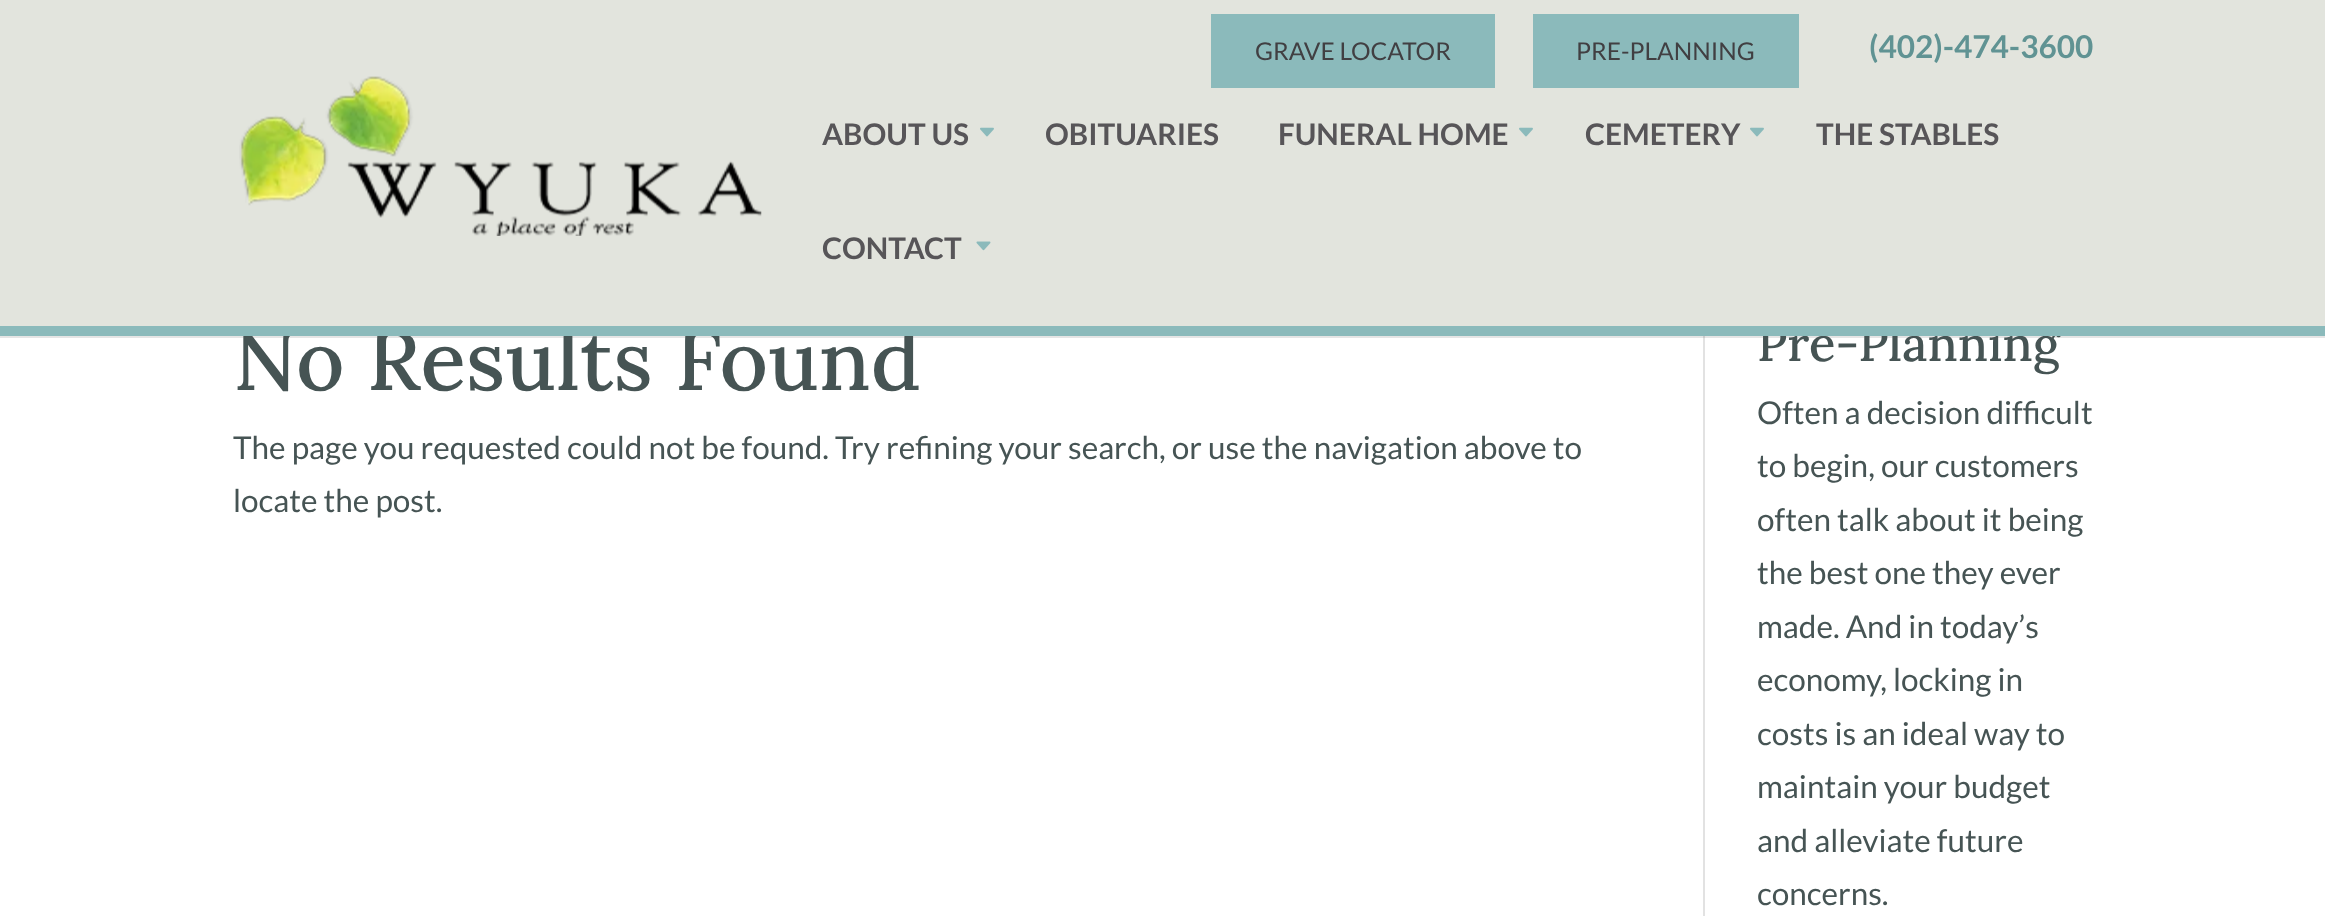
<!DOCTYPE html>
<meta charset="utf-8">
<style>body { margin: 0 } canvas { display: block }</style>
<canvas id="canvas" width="2325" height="916"></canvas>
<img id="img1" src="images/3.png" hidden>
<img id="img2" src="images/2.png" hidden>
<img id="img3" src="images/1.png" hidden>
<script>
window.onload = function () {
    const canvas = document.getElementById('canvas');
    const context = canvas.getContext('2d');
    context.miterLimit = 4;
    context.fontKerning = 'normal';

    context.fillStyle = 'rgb(255, 255, 255)';
    context.fillRect(0, 0, 2325, 916);
    context.fillStyle = 'rgb(226, 226, 226)';
    context.fillRect(1703, 336, 2, 580);
    context.fillStyle = 'rgba(0, 0, 0, 0.1)';
    context.beginPath();
    context.moveTo(0, 336);
    context.lineTo(0, 338);
    context.lineTo(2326, 338);
    context.lineTo(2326, 100);
    context.lineTo(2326, 336);
    context.closePath();
    context.fill();
    context.font = '500 84px Lora';
    context.fillStyle = 'rgb(70, 84, 84)';
    context.fillText('No Results Found', 233, 390);
    context.font = '31.5px Lato';
    context.fillText('The page you requested could not be found. Try refining your search, or use the navigation above to', 233, 459);
    context.fillText('locate the post.', 233, 512);
    context.font = '500 49px Lora';
    context.fillText('Pre-Planning', 1757, 361);
    context.fillStyle = 'rgb(226, 228, 221)';
    context.fillRect(0, 0, 2325, 326);
    context.drawImage(document.getElementById('img1'), 976, 241, 15, 10);
    context.font = 'bold 29.75px Lato';
    context.fillStyle = 'rgb(87, 85, 88)';
    context.fillText('CONTACT', 822, 259);
    context.fillText('THE STABLES', 1816, 145);
    context.drawImage(document.getElementById('img2'), 1750, 127, 14, 10);
    context.fillText('CEMETERY', 1585, 145);
    context.drawImage(document.getElementById('img2'), 1519, 127, 14, 10);
    context.fillText('FUNERAL HOME', 1278, 145);
    context.fillText('OBITUARIES', 1045, 145);
    context.drawImage(document.getElementById('img2'), 980, 127, 14, 10);
    context.fillText('ABOUT US', 822, 145);
    context.drawImage(document.getElementById('img3'), 239, 76, 523, 160);
    context.fillStyle = 'rgb(139, 186, 187)';
    context.fillRect(0, 326, 2325, 10);
    context.fillRect(1533, 14, 266, 74);
    context.font = '24.5px Lato';
    context.fillStyle = 'rgb(65, 63, 66)';
    context.fillText('PRE-PLANNING', 1576, 60);
    context.fillStyle = 'rgb(139, 186, 187)';
    context.fillRect(1211, 14, 284, 74);
    context.fillStyle = 'rgb(65, 63, 66)';
    context.fillText('GRAVE LOCATOR', 1255, 60);
    context.font = 'bold 31.5px Lato';
    context.fillStyle = 'rgb(96, 147, 147)';
    context.fillText('(402)-474-3600', 1869, 58);
    context.font = '31.5px Lato';
    context.fillStyle = 'rgb(70, 84, 84)';
    context.fillText('Often a decision difficult', 1757, 424);
    context.fillText('to begin, our customers', 1757, 477);
    context.fillText('often talk about it being', 1757, 531);
    context.fillText('the best one they ever', 1757, 584);
    context.fillText('made. And in today’s', 1757, 638);
    context.fillText('economy, locking in', 1757, 691);
    context.fillText('costs is an ideal way to', 1757, 745);
    context.fillText('maintain your budget', 1757, 798);
    context.fillText('and alleviate future', 1757, 852);
    context.fillText('concerns.', 1757, 905);
};
</script>
